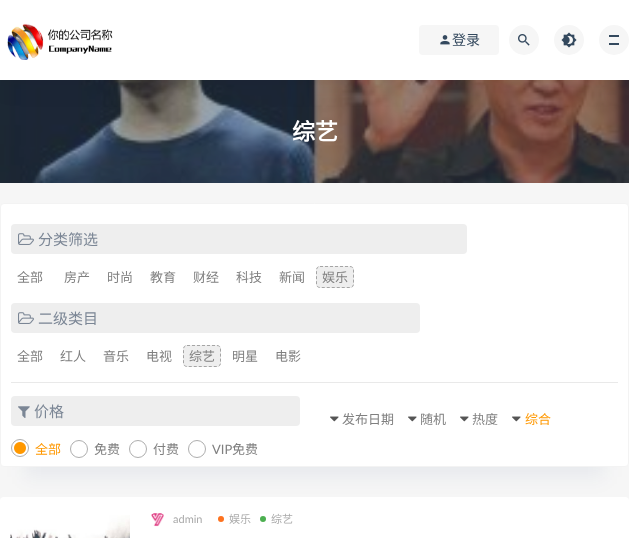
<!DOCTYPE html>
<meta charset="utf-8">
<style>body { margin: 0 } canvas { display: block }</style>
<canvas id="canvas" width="629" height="538"></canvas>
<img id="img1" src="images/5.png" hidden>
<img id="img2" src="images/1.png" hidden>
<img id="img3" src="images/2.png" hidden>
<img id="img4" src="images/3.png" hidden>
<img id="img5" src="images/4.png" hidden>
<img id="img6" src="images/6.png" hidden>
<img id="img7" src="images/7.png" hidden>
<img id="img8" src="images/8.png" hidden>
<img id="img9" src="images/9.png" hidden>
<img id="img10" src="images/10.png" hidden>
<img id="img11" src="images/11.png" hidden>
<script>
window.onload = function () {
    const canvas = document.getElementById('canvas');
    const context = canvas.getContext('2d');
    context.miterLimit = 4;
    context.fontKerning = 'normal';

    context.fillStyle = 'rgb(246, 246, 246)';
    context.fillRect(0, 0, 629, 538);
    context.drawImage(document.getElementById('img1'), 0, 80, 629, 103);
    context.fillStyle = 'rgba(0, 0, 0, 0.07)';
    context.filter = 'blur(15px)';
    context.beginPath();
    context.rect(0, 0, 629, 80);
    context.fill();
    context.filter = 'none';
    context.fillStyle = 'rgb(255, 255, 255)';
    context.fillRect(0, 0, 629, 80);
    context.drawImage(document.getElementById('img2'), 7, 23, 106, 37);
    context.fillStyle = 'rgb(246, 246, 246)';
    context.beginPath();
    context.roundRect(419, 25, 80, 30, 4);
    context.fill();
    context.drawImage(document.getElementById('img3'), 440, 35, 10, 10);
    context.beginPath();
    context.arc(524, 40, 15, 0, 2 * Math.PI);
    context.fill();
    context.drawImage(document.getElementById('img4'), 518, 34, 12, 12);
    context.beginPath();
    context.arc(569, 40, 15, 0, 2 * Math.PI);
    context.fill();
    context.drawImage(document.getElementById('img5'), 561, 32, 16, 16);
    context.beginPath();
    context.arc(614, 40, 15, 0, 2 * Math.PI);
    context.fill();
    context.fillStyle = 'rgb(52, 73, 94)';
    context.fillRect(609, 35, 10, 2);
    context.fillRect(609, 43, 10, 2);
    context.fillStyle = 'rgb(255, 255, 255)';
    context.beginPath();
    context.roundRect(0, 497, 629, 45, 4);
    context.fill();
    context.fillStyle = 'rgba(0, 36, 100, 0.06)';
    context.filter = 'blur(10px)';
    context.beginPath();
    context.rect(24, 261, 581, 216);
    context.fill();
    context.filter = 'none';
    context.fillStyle = 'rgb(255, 255, 255)';
    context.beginPath();
    context.roundRect(0.5, 203.5, 628, 263, 3.5);
    context.fill();
    context.strokeStyle = 'rgb(243, 243, 243)';
    context.stroke();
    context.fillStyle = 'rgb(238, 238, 238)';
    context.beginPath();
    context.roundRect(11, 224, 456, 30, 4);
    context.fill();
    context.drawImage(document.getElementById('img6'), 18, 233, 16, 12);
    context.beginPath();
    context.roundRect(316, 266, 38, 22, 4);
    context.fill();
    context.beginPath();
    context.moveTo(320, 266.5);
    context.lineTo(350, 266.5);
    context.bezierCurveTo(352, 266.5, 353.5, 268, 353.5, 270);
    context.lineTo(353.5, 284);
    context.bezierCurveTo(353.5, 286, 352, 287.5, 350, 287.5);
    context.lineTo(320, 287.5);
    context.bezierCurveTo(318, 287.5, 316.5, 286, 316.5, 284);
    context.lineTo(316.5, 270);
    context.bezierCurveTo(316.5, 268, 318, 266.5, 320, 266.5);
    context.closePath();
    context.strokeStyle = 'rgb(165, 165, 165)';
    context.setLineDash([3, 2]);
    context.stroke();
    context.beginPath();
    context.roundRect(11, 303, 409, 30, 4);
    context.fill();
    context.drawImage(document.getElementById('img6'), 18, 312, 16, 12);
    context.beginPath();
    context.roundRect(183, 345, 38, 22, 4);
    context.fill();
    context.beginPath();
    context.moveTo(187, 345.5);
    context.lineTo(217, 345.5);
    context.bezierCurveTo(219, 345.5, 220.5, 347, 220.5, 349);
    context.lineTo(220.5, 363);
    context.bezierCurveTo(220.5, 365, 219, 366.5, 217, 366.5);
    context.lineTo(187, 366.5);
    context.bezierCurveTo(185, 366.5, 183.5, 365, 183.5, 363);
    context.lineTo(183.5, 349);
    context.bezierCurveTo(183.5, 347, 185, 345.5, 187, 345.5);
    context.closePath();
    context.stroke();
    context.fillStyle = 'rgb(233, 233, 233)';
    context.fillRect(11, 382, 607, 1);
    context.fillStyle = 'rgb(238, 238, 238)';
    context.beginPath();
    context.roundRect(11, 396, 289, 30, 4);
    context.fill();
    context.drawImage(document.getElementById('img7'), 18, 406, 12, 12);
    context.beginPath();
    context.arc(20, 448, 8.5, 0, 2 * Math.PI);
    context.strokeStyle = 'rgb(174, 174, 174)';
    context.setLineDash([]);
    context.stroke();
    context.drawImage(document.getElementById('img8'), 14, 442, 12, 12);
    context.beginPath();
    context.arc(79, 449, 8.5, 0, 2 * Math.PI);
    context.stroke();
    context.beginPath();
    context.arc(138, 449, 8.5, 0, 2 * Math.PI);
    context.stroke();
    context.beginPath();
    context.arc(197, 449, 8.5, 0, 2 * Math.PI);
    context.stroke();
    context.drawImage(document.getElementById('img9'), 330, 416, 9, 6);
    context.drawImage(document.getElementById('img9'), 408, 416, 9, 6);
    context.drawImage(document.getElementById('img9'), 460, 416, 9, 6);
    context.drawImage(document.getElementById('img9'), 512, 416, 9, 6);
    context.drawImage(document.getElementById('img10'), 10, 515, 120, 23);
    context.drawImage(document.getElementById('img11'), 151, 513, 13, 14);
    context.fillStyle = 'rgb(253, 114, 31)';
    context.beginPath();
    context.arc(221, 519, 3, 0, 2 * Math.PI);
    context.fill();
    context.fillStyle = 'rgb(76, 175, 80)';
    context.beginPath();
    context.arc(263, 519, 3, 0, 2 * Math.PI);
    context.fill();
    context.font = '14px Noto Sans CJK SC';
    context.fillStyle = 'rgb(52, 73, 94)';
    context.fillText('登录', 452, 45);
    context.font = 'bold 23px Noto Sans CJK SC';
    context.fillStyle = 'rgb(255, 255, 255)';
    context.fillText('综艺', 292, 140);
    context.font = '15px Noto Sans CJK SC';
    context.fillStyle = 'rgb(123, 134, 149)';
    context.fillText('分类筛选', 38, 245);
    context.font = '13px Noto Sans CJK SC';
    context.fillStyle = 'rgb(128, 128, 128)';
    context.fillText('全部', 17, 282);
    context.fillText('房产', 64, 282);
    context.fillText('时尚', 107, 282);
    context.fillText('教育', 150, 282);
    context.fillText('财经', 193, 282);
    context.fillText('科技', 236, 282);
    context.fillText('新闻', 279, 282);
    context.fillText('娱乐', 322, 282);
    context.font = '15px Noto Sans CJK SC';
    context.fillStyle = 'rgb(123, 134, 149)';
    context.fillText('二级类目', 38, 324);
    context.font = '13px Noto Sans CJK SC';
    context.fillStyle = 'rgb(128, 128, 128)';
    context.fillText('全部', 17, 361);
    context.fillText('红人', 60, 361);
    context.fillText('音乐', 103, 361);
    context.fillText('电视', 146, 361);
    context.fillText('综艺', 189, 361);
    context.fillText('明星', 232, 361);
    context.fillText('电影', 275, 361);
    context.font = '15px Noto Sans CJK SC';
    context.fillStyle = 'rgb(123, 134, 149)';
    context.fillText('价格', 34, 417);
    context.font = '13px Noto Sans CJK SC';
    context.fillStyle = 'rgb(255, 152, 0)';
    context.fillText('全部', 35, 454);
    context.fillStyle = 'rgb(128, 128, 128)';
    context.fillText('免费', 94, 454);
    context.fillText('付费', 153, 454);
    context.font = '13px Lato';
    context.fillText('VIP', 212, 454);
    context.font = '13px Noto Sans CJK SC';
    context.fillText('免费', 232, 454);
    context.fillText('发布日期', 342, 424);
    context.fillText('随机', 420, 424);
    context.fillText('热度', 472, 424);
    context.fillStyle = 'rgb(255, 152, 0)';
    context.fillText('综合', 525, 424);
    context.font = '11px Lato';
    context.fillStyle = 'rgb(170, 170, 170)';
    context.fillText('admin', 173, 523);
    context.font = '11px Noto Sans CJK SC';
    context.fillText('娱乐', 229, 523);
    context.fillText('综艺', 271, 523);
};
</script>
